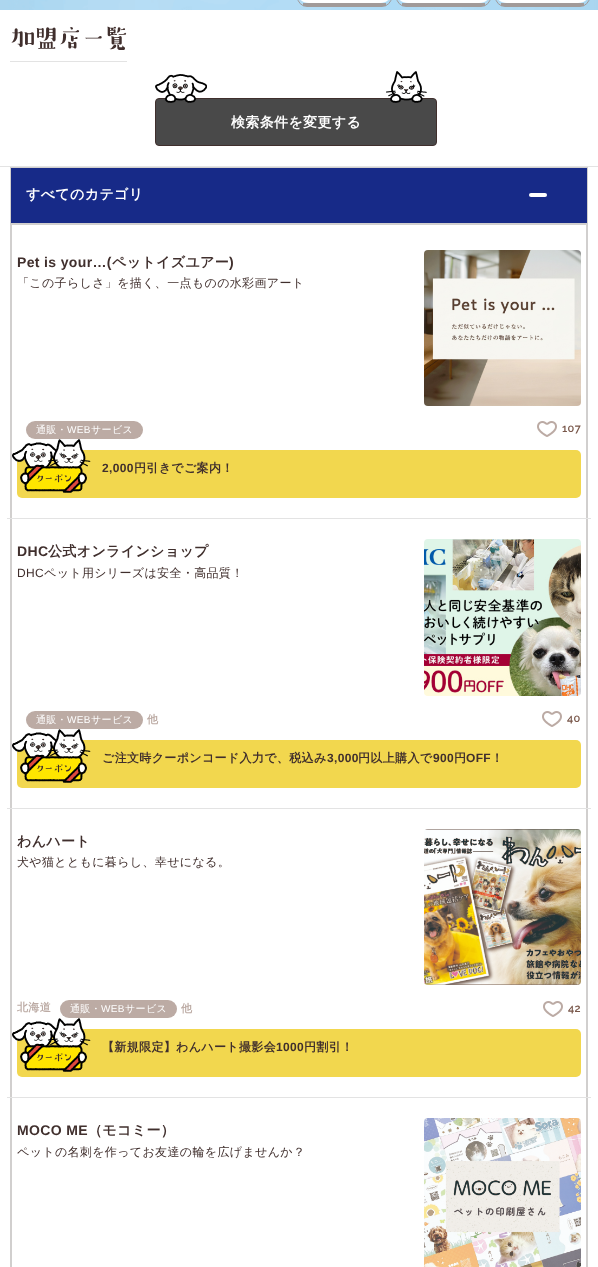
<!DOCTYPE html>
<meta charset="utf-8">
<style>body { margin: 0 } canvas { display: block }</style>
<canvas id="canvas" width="598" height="1267"></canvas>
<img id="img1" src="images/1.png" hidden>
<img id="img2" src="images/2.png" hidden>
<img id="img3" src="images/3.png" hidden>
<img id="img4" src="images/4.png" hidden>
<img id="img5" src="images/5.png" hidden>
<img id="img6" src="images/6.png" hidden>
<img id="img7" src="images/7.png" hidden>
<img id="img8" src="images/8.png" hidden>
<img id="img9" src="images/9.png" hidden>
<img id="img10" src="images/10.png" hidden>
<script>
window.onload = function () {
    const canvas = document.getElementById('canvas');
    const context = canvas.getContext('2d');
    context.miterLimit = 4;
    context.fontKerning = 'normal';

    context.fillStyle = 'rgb(255, 255, 255)';
    context.fillRect(0, 0, 598, 1267);
    context.drawImage(document.getElementById('img1'), 0, 0, 598, 10);
    context.beginPath();
    context.moveTo(309, -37);
    context.lineTo(380, -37);
    context.bezierCurveTo(386, -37, 391, -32, 391, -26);
    context.lineTo(391, -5);
    context.bezierCurveTo(391, -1, 386, 3, 380, 3);
    context.lineTo(309, 3);
    context.bezierCurveTo(303, 3, 298, -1, 298, -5);
    context.lineTo(298, -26);
    context.bezierCurveTo(298, -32, 303, -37, 309, -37);
    context.closePath();
    context.fill();
    context.beginPath();
    context.roundRect(297.5, -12.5, 94, 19, 11.5);
    context.strokeStyle = 'rgb(161, 154, 153)';
    context.stroke();
    context.fillStyle = 'rgb(161, 154, 153)';
    context.fillRect(303, 3, 83, 3);
    context.fillStyle = 'rgb(255, 255, 255)';
    context.beginPath();
    context.moveTo(408, -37);
    context.lineTo(479, -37);
    context.bezierCurveTo(485, -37, 490, -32, 490, -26);
    context.lineTo(490, -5);
    context.bezierCurveTo(490, -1, 485, 3, 479, 3);
    context.lineTo(408, 3);
    context.bezierCurveTo(402, 3, 397, -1, 397, -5);
    context.lineTo(397, -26);
    context.bezierCurveTo(397, -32, 402, -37, 408, -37);
    context.closePath();
    context.fill();
    context.beginPath();
    context.roundRect(396.5, -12.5, 94, 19, 11.5);
    context.stroke();
    context.fillStyle = 'rgb(161, 154, 153)';
    context.fillRect(402, 3, 83, 3);
    context.fillStyle = 'rgb(255, 255, 255)';
    context.beginPath();
    context.moveTo(507, -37);
    context.lineTo(578, -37);
    context.bezierCurveTo(584, -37, 589, -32, 589, -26);
    context.lineTo(589, -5);
    context.bezierCurveTo(589, -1, 584, 3, 578, 3);
    context.lineTo(507, 3);
    context.bezierCurveTo(501, 3, 496, -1, 496, -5);
    context.lineTo(496, -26);
    context.bezierCurveTo(496, -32, 501, -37, 507, -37);
    context.closePath();
    context.fill();
    context.beginPath();
    context.roundRect(495.5, -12.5, 94, 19, 11.5);
    context.stroke();
    context.fillStyle = 'rgb(161, 154, 153)';
    context.fillRect(501, 3, 83, 3);
    context.fillStyle = 'rgb(227, 227, 227)';
    context.fillRect(0, 166, 598, 1);
    context.fillRect(10, 61, 117, 1);
    context.fillStyle = 'rgb(73, 73, 73)';
    context.beginPath();
    context.roundRect(155.5, 98.5, 281, 47, 3.5);
    context.fill();
    context.strokeStyle = 'rgb(64, 47, 45)';
    context.stroke();
    context.drawImage(document.getElementById('img2'), 155, 74, 52, 29);
    context.drawImage(document.getElementById('img3'), 386, 71, 41, 32);
    context.fillStyle = 'rgb(23, 42, 136)';
    context.beginPath();
    context.rect(10.5, 167.5, 577, 56);
    context.fill();
    context.strokeStyle = 'rgb(209, 207, 206)';
    context.stroke();
    context.fillStyle = 'rgb(255, 255, 255)';
    context.beginPath();
    context.roundRect(529, 193, 18, 4, 2);
    context.fill();
    context.fillStyle = 'rgb(209, 207, 206)';
    context.fillRect(10, 224, 578, 1);
    context.fillRect(586, 224, 2, 1043);
    context.fillRect(10, 224, 2, 1043);
    context.drawImage(document.getElementById('img4'), 424, 250, 157, 156);
    context.fillStyle = 'rgb(188, 171, 164)';
    context.beginPath();
    context.roundRect(26, 421, 117, 18, 9);
    context.fill();
    context.drawImage(document.getElementById('img5'), 537, 421, 20, 16);
    context.fillStyle = 'rgb(242, 215, 78)';
    context.beginPath();
    context.roundRect(17, 450, 564, 48, 5);
    context.fill();
    context.drawImage(document.getElementById('img6'), 12, 439, 79, 54);
    context.fillStyle = 'rgb(227, 227, 227)';
    context.fillRect(7, 518, 584, 1);
    context.drawImage(document.getElementById('img7'), 424, 539, 157, 157);
    context.fillStyle = 'rgb(188, 171, 164)';
    context.beginPath();
    context.roundRect(26, 711, 117, 18, 9);
    context.fill();
    context.drawImage(document.getElementById('img5'), 542, 711, 20, 16);
    context.fillStyle = 'rgb(242, 215, 78)';
    context.beginPath();
    context.roundRect(17, 740, 564, 48, 5);
    context.fill();
    context.drawImage(document.getElementById('img8'), 12, 729, 79, 54);
    context.fillStyle = 'rgb(227, 227, 227)';
    context.fillRect(7, 808, 584, 1);
    context.drawImage(document.getElementById('img9'), 424, 829, 157, 156);
    context.fillStyle = 'rgb(188, 171, 164)';
    context.beginPath();
    context.roundRect(60, 1000, 117, 18, 9);
    context.fill();
    context.drawImage(document.getElementById('img5'), 543, 1001, 20, 16);
    context.fillStyle = 'rgb(242, 215, 78)';
    context.beginPath();
    context.roundRect(17, 1029, 564, 48, 5);
    context.fill();
    context.drawImage(document.getElementById('img8'), 12, 1018, 79, 54);
    context.fillStyle = 'rgb(227, 227, 227)';
    context.fillRect(7, 1097, 584, 1);
    context.drawImage(document.getElementById('img10'), 424, 1118, 157, 149);
    context.letterSpacing = '-2.5px';
    context.font = '500 26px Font';
    context.fillStyle = 'rgb(64, 47, 45)';
    context.fillText('加盟店一覧', 10, 48);
    context.letterSpacing = '0.35px';
    context.font = 'bold 14px WenQuanYi Zen Hei';
    context.fillStyle = 'rgb(255, 255, 255)';
    context.fillText('検索条件を変更する', 231, 127);
    context.fillText('すべてのカテゴリ', 26, 199);
    context.font = 'bold 14px Liberation Sans';
    context.fillStyle = 'rgb(64, 47, 45)';
    context.fillText('Pet is your…(', 17, 267);
    context.font = 'bold 14px WenQuanYi Zen Hei';
    context.fillText('ペットイズユアー', 112, 267);
    context.font = 'bold 14px Liberation Sans';
    context.fillText(')', 229, 267);
    context.font = '500 12px WenQuanYi Zen Hei';
    context.fillText('「この子らしさ」を描く、一点ものの水彩画アート', 17, 287);
    context.font = '500 10px WenQuanYi Zen Hei';
    context.fillStyle = 'rgb(255, 255, 255)';
    context.fillText('通販・', 36, 433);
    context.font = '10px Liberation Sans';
    context.fillText('WEB', 67, 433);
    context.font = '500 10px WenQuanYi Zen Hei';
    context.fillText('サービス', 91, 433);
    context.font = '600 11px Raleway';
    context.fillStyle = 'rgb(120, 86, 73)';
    context.fillText('107', 562, 432);
    context.font = 'bold 12px Liberation Sans';
    context.fillStyle = 'rgb(64, 47, 45)';
    context.fillText('2,000', 102, 472);
    context.font = 'bold 12px WenQuanYi Zen Hei';
    context.fillText('円引きでご案内！', 134, 472);
    context.font = 'bold 14px Liberation Sans';
    context.fillText('DHC', 17, 556);
    context.font = 'bold 14px WenQuanYi Zen Hei';
    context.fillText('公式オンラインショップ', 48, 556);
    context.font = '12px Liberation Sans';
    context.fillText('DHC', 17, 577);
    context.font = '500 12px WenQuanYi Zen Hei';
    context.fillText('ペット用シリーズは安全・高品質！', 44, 577);
    context.font = '500 10px WenQuanYi Zen Hei';
    context.fillStyle = 'rgb(255, 255, 255)';
    context.fillText('通販・', 36, 723);
    context.font = '10px Liberation Sans';
    context.fillText('WEB', 67, 723);
    context.font = '500 10px WenQuanYi Zen Hei';
    context.fillText('サービス', 91, 723);
    context.font = 'bold 11px WenQuanYi Zen Hei';
    context.fillStyle = 'rgb(188, 171, 164)';
    context.fillText('他', 147, 723);
    context.font = '600 11px Raleway';
    context.fillStyle = 'rgb(120, 86, 73)';
    context.fillText('40', 567, 722);
    context.font = 'bold 12px WenQuanYi Zen Hei';
    context.fillStyle = 'rgb(64, 47, 45)';
    context.fillText('ご注文時クーポンコード入力で、税込み', 102, 762);
    context.font = 'bold 12px Liberation Sans';
    context.fillText('3,000', 327, 762);
    context.font = 'bold 12px WenQuanYi Zen Hei';
    context.fillText('円以上購入で', 358, 762);
    context.font = 'bold 12px Liberation Sans';
    context.fillText('900', 433, 762);
    context.font = 'bold 12px WenQuanYi Zen Hei';
    context.fillText('円', 454, 762);
    context.font = 'bold 12px Liberation Sans';
    context.fillText('OFF', 466, 762);
    context.font = 'bold 12px WenQuanYi Zen Hei';
    context.fillText('！', 491, 762);
    context.font = 'bold 14px WenQuanYi Zen Hei';
    context.fillText('わんハート', 17, 846);
    context.font = '500 12px WenQuanYi Zen Hei';
    context.fillText('犬や猫とともに暮らし、幸せになる。', 17, 866);
    context.font = 'bold 11px WenQuanYi Zen Hei';
    context.fillStyle = 'rgb(188, 171, 164)';
    context.fillText('北海道', 17, 1011);
    context.font = '500 10px WenQuanYi Zen Hei';
    context.fillStyle = 'rgb(255, 255, 255)';
    context.fillText('通販・', 70, 1012);
    context.font = '10px Liberation Sans';
    context.fillText('WEB', 101, 1012);
    context.font = '500 10px WenQuanYi Zen Hei';
    context.fillText('サービス', 125, 1012);
    context.font = 'bold 11px WenQuanYi Zen Hei';
    context.fillStyle = 'rgb(188, 171, 164)';
    context.fillText('他', 181, 1012);
    context.font = '600 11px Raleway';
    context.fillStyle = 'rgb(120, 86, 73)';
    context.fillText('42', 568, 1012);
    context.font = 'bold 12px WenQuanYi Zen Hei';
    context.fillStyle = 'rgb(64, 47, 45)';
    context.fillText('【新規限定】わんハート撮影会', 102, 1051);
    context.font = 'bold 12px Liberation Sans';
    context.fillText('1000', 276, 1051);
    context.font = 'bold 12px WenQuanYi Zen Hei';
    context.fillText('円割引！', 304, 1051);
    context.font = 'bold 14px Liberation Sans';
    context.fillText('MOCO ME', 17, 1135);
    context.font = 'bold 14px WenQuanYi Zen Hei';
    context.fillText('（モコミー）', 88, 1135);
    context.font = '500 12px WenQuanYi Zen Hei';
    context.fillText('ペットの名刺を作ってお友達の輪を広げませんか？', 17, 1156);
};
</script>
